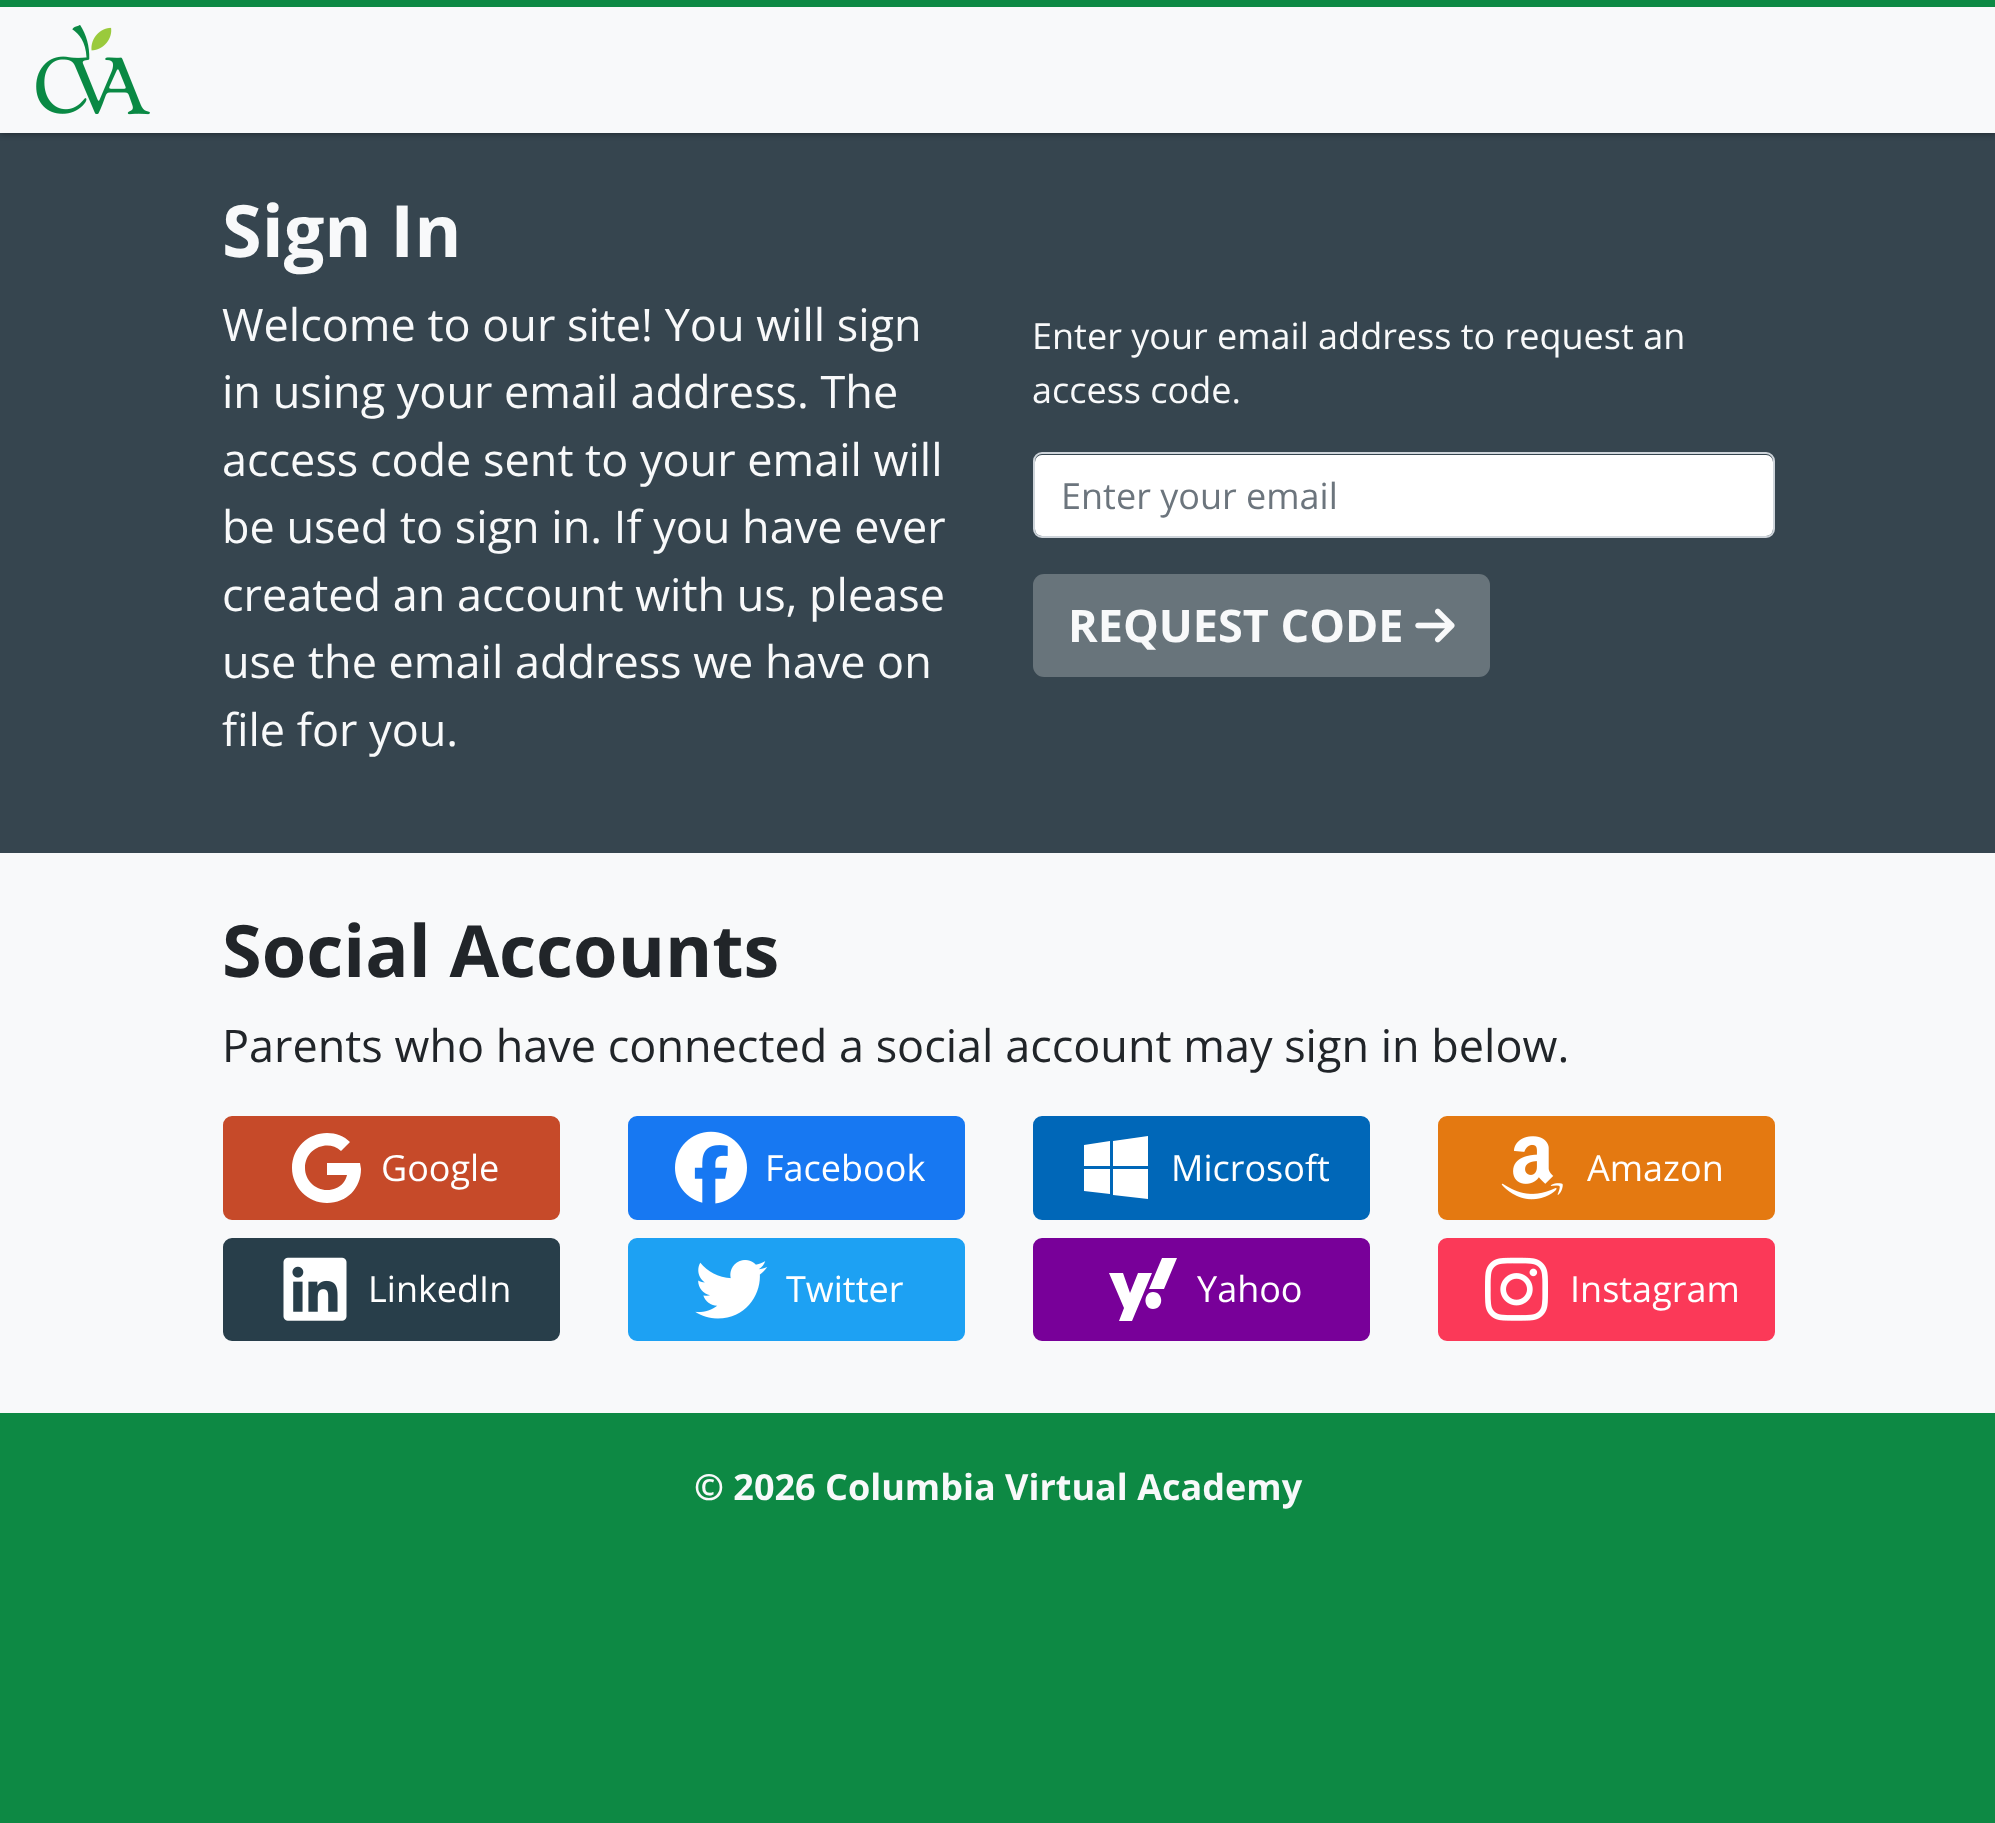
<!DOCTYPE html>
<meta charset="utf-8">
<style>body { margin: 0 } canvas { display: block }</style>
<canvas id="canvas" width="1995" height="1823"></canvas>
<img id="img1" src="images/1.png" hidden>
<img id="img2" src="images/2.png" hidden>
<img id="img3" src="images/3.png" hidden>
<img id="img4" src="images/4.png" hidden>
<img id="img5" src="images/5.png" hidden>
<img id="img6" src="images/6.png" hidden>
<img id="img7" src="images/7.png" hidden>
<script>
window.onload = function () {
    const canvas = document.getElementById('canvas');
    const context = canvas.getContext('2d');
    context.miterLimit = 4;
    context.fontKerning = 'normal';

    context.fillStyle = 'rgb(13, 137, 68)';
    context.fillRect(0, 0, 1995, 1823);
    context.fillStyle = 'rgb(54, 69, 79)';
    context.fillRect(0, 133, 1995, 720);
    context.fillStyle = 'rgba(0, 0, 0, 0.5)';
    context.filter = 'blur(3.5px)';
    context.beginPath();
    context.rect(0, 0, 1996, 133);
    context.fill();
    context.filter = 'none';
    context.fillStyle = 'rgb(248, 249, 250)';
    context.fillRect(0, 7, 1995, 126);
    context.fillStyle = 'rgb(13, 137, 68)';
    context.fillRect(0, 0, 1995, 7);
    context.drawImage(document.getElementById('img1'), 36, 25, 114, 90);
    context.fillStyle = 'rgb(255, 255, 255)';
    context.beginPath();
    context.roundRect(1035, 455, 738, 81, 7);
    context.fill();
    context.beginPath();
    context.roundRect(1034, 453, 740, 84, 8);
    context.strokeStyle = 'rgb(206, 212, 218)';
    context.lineWidth = 2;
    context.stroke();
    context.fillStyle = 'rgb(104, 116, 123)';
    context.beginPath();
    context.roundRect(1033, 574, 457, 103, 11);
    context.fill();
    context.drawImage(document.getElementById('img2'), 1415, 608, 40, 35);
    context.fillStyle = 'rgb(248, 249, 250)';
    context.fillRect(0, 853, 1995, 560);
    context.fillStyle = 'rgb(198, 74, 41)';
    context.beginPath();
    context.roundRect(224, 1117, 335, 102, 8);
    context.fill();
    context.strokeStyle = 'rgb(198, 74, 41)';
    context.stroke();
    context.fillStyle = 'rgb(255, 255, 255)';
    context.beginPath();
    context.moveTo(361, 1169);
    context.bezierCurveTo(361, 1188, 347, 1203, 327, 1203);
    context.bezierCurveTo(308, 1203, 292, 1187, 292, 1168);
    context.bezierCurveTo(292, 1148, 308, 1133, 327, 1133);
    context.bezierCurveTo(336, 1133, 344, 1136, 350, 1142);
    context.lineTo(341, 1151);
    context.bezierCurveTo(328, 1139, 305, 1148, 305, 1168);
    context.bezierCurveTo(305, 1180, 315, 1190, 327, 1190);
    context.bezierCurveTo(341, 1190, 346, 1180, 347, 1175);
    context.lineTo(327, 1175);
    context.lineTo(327, 1163);
    context.lineTo(360, 1163);
    context.closePath();
    context.fill();
    context.fillStyle = 'rgb(23, 120, 242)';
    context.beginPath();
    context.roundRect(629, 1117, 335, 102, 8);
    context.fill();
    context.strokeStyle = 'rgb(23, 120, 242)';
    context.stroke();
    context.drawImage(document.getElementById('img3'), 675, 1131, 72, 73);
    context.fillStyle = 'rgb(0, 103, 184)';
    context.beginPath();
    context.roundRect(1034, 1117, 335, 102, 8);
    context.fill();
    context.strokeStyle = 'rgb(0, 103, 184)';
    context.stroke();
    context.fillStyle = 'rgb(255, 255, 255)';
    context.beginPath();
    context.moveTo(1084, 1145);
    context.lineTo(1110, 1141);
    context.lineTo(1110, 1166);
    context.lineTo(1084, 1166);
    context.closePath();
    context.moveTo(1084, 1191);
    context.lineTo(1110, 1194);
    context.lineTo(1110, 1169);
    context.lineTo(1084, 1169);
    context.closePath();
    context.moveTo(1113, 1195);
    context.lineTo(1148, 1199);
    context.lineTo(1148, 1169);
    context.lineTo(1113, 1169);
    context.closePath();
    context.moveTo(1113, 1141);
    context.lineTo(1113, 1166);
    context.lineTo(1148, 1166);
    context.lineTo(1148, 1136);
    context.closePath();
    context.fill();
    context.fillStyle = 'rgb(228, 121, 17)';
    context.beginPath();
    context.roundRect(1439, 1117, 335, 102, 8);
    context.fill();
    context.strokeStyle = 'rgb(228, 121, 17)';
    context.stroke();
    context.drawImage(document.getElementById('img4'), 1501, 1136, 62, 64);
    context.fillStyle = 'rgb(40, 62, 74)';
    context.beginPath();
    context.roundRect(224, 1239, 335, 101, 8);
    context.fill();
    context.strokeStyle = 'rgb(40, 62, 74)';
    context.stroke();
    context.drawImage(document.getElementById('img5'), 283, 1257, 64, 64);
    context.fillStyle = 'rgb(29, 161, 243)';
    context.beginPath();
    context.roundRect(629, 1239, 335, 101, 8);
    context.fill();
    context.strokeStyle = 'rgb(29, 161, 243)';
    context.stroke();
    context.drawImage(document.getElementById('img6'), 695, 1260, 73, 59);
    context.fillStyle = 'rgb(120, 0, 153)';
    context.beginPath();
    context.roundRect(1034, 1239, 335, 101, 8);
    context.fill();
    context.strokeStyle = 'rgb(120, 0, 153)';
    context.stroke();
    context.fillStyle = 'rgb(255, 255, 255)';
    context.beginPath();
    context.moveTo(1138, 1273);
    context.lineTo(1130, 1293);
    context.lineTo(1123, 1273);
    context.lineTo(1109, 1273);
    context.lineTo(1124, 1308);
    context.lineTo(1119, 1321);
    context.lineTo(1132, 1321);
    context.lineTo(1152, 1273);
    context.closePath();
    context.moveTo(1153, 1292);
    context.bezierCurveTo(1143, 1292, 1143, 1309, 1153, 1309);
    context.bezierCurveTo(1164, 1309, 1164, 1292, 1153, 1292);
    context.closePath();
    context.moveTo(1162, 1258);
    context.lineTo(1149, 1289);
    context.lineTo(1164, 1289);
    context.lineTo(1177, 1258);
    context.closePath();
    context.fill();
    context.fillStyle = 'rgb(251, 57, 88)';
    context.beginPath();
    context.roundRect(1439, 1239, 335, 101, 8);
    context.fill();
    context.strokeStyle = 'rgb(251, 57, 88)';
    context.stroke();
    context.drawImage(document.getElementById('img7'), 1485, 1257, 63, 64);
    context.font = 'bold 72px Open Sans';
    context.fillStyle = 'rgb(248, 249, 250)';
    context.fillText('Sign In', 222, 257);
    context.font = '45px Open Sans';
    context.fillText('Welcome to our site! You will sign', 222, 341);
    context.fillText('in using your email address. The', 222, 408);
    context.fillText('access code sent to your email will', 222, 476);
    context.fillText('be used to sign in. If you have ever', 222, 543);
    context.fillText('created an account with us, please', 222, 611);
    context.fillText('use the email address we have on', 222, 678);
    context.fillText('file for you.', 222, 746);
    context.font = '36px Open Sans';
    context.fillText('Enter your email address to request an', 1032, 349);
    context.fillText('access code.', 1032, 403);
    context.fillStyle = 'rgb(108, 117, 125)';
    context.fillText('Enter your email', 1061, 509);
    context.font = 'bold 45px Open Sans';
    context.fillStyle = 'rgb(248, 249, 250)';
    context.fillText('REQUEST CODE', 1068, 642);
    context.font = 'bold 72px Open Sans';
    context.fillStyle = 'rgb(33, 37, 41)';
    context.fillText('Social Accounts', 222, 977);
    context.font = '45px Open Sans';
    context.fillText('Parents who have connected a social account may sign in below.', 222, 1062);
    context.font = '36px Open Sans';
    context.fillStyle = 'rgb(255, 255, 255)';
    context.fillText('Google', 381, 1181);
    context.fillText('Facebook', 765, 1181);
    context.fillText('Microsoft', 1171, 1181);
    context.fillText('Amazon', 1587, 1181);
    context.fillText('LinkedIn', 368, 1302);
    context.fillText('Twitter', 786, 1302);
    context.fillText('Yahoo', 1197, 1302);
    context.fillText('Instagram', 1570, 1302);
    context.font = 'bold 36px Open Sans';
    context.fillStyle = 'rgb(248, 249, 250)';
    context.fillText('© 2026 Columbia Virtual Academy', 694, 1500);
};
</script>
